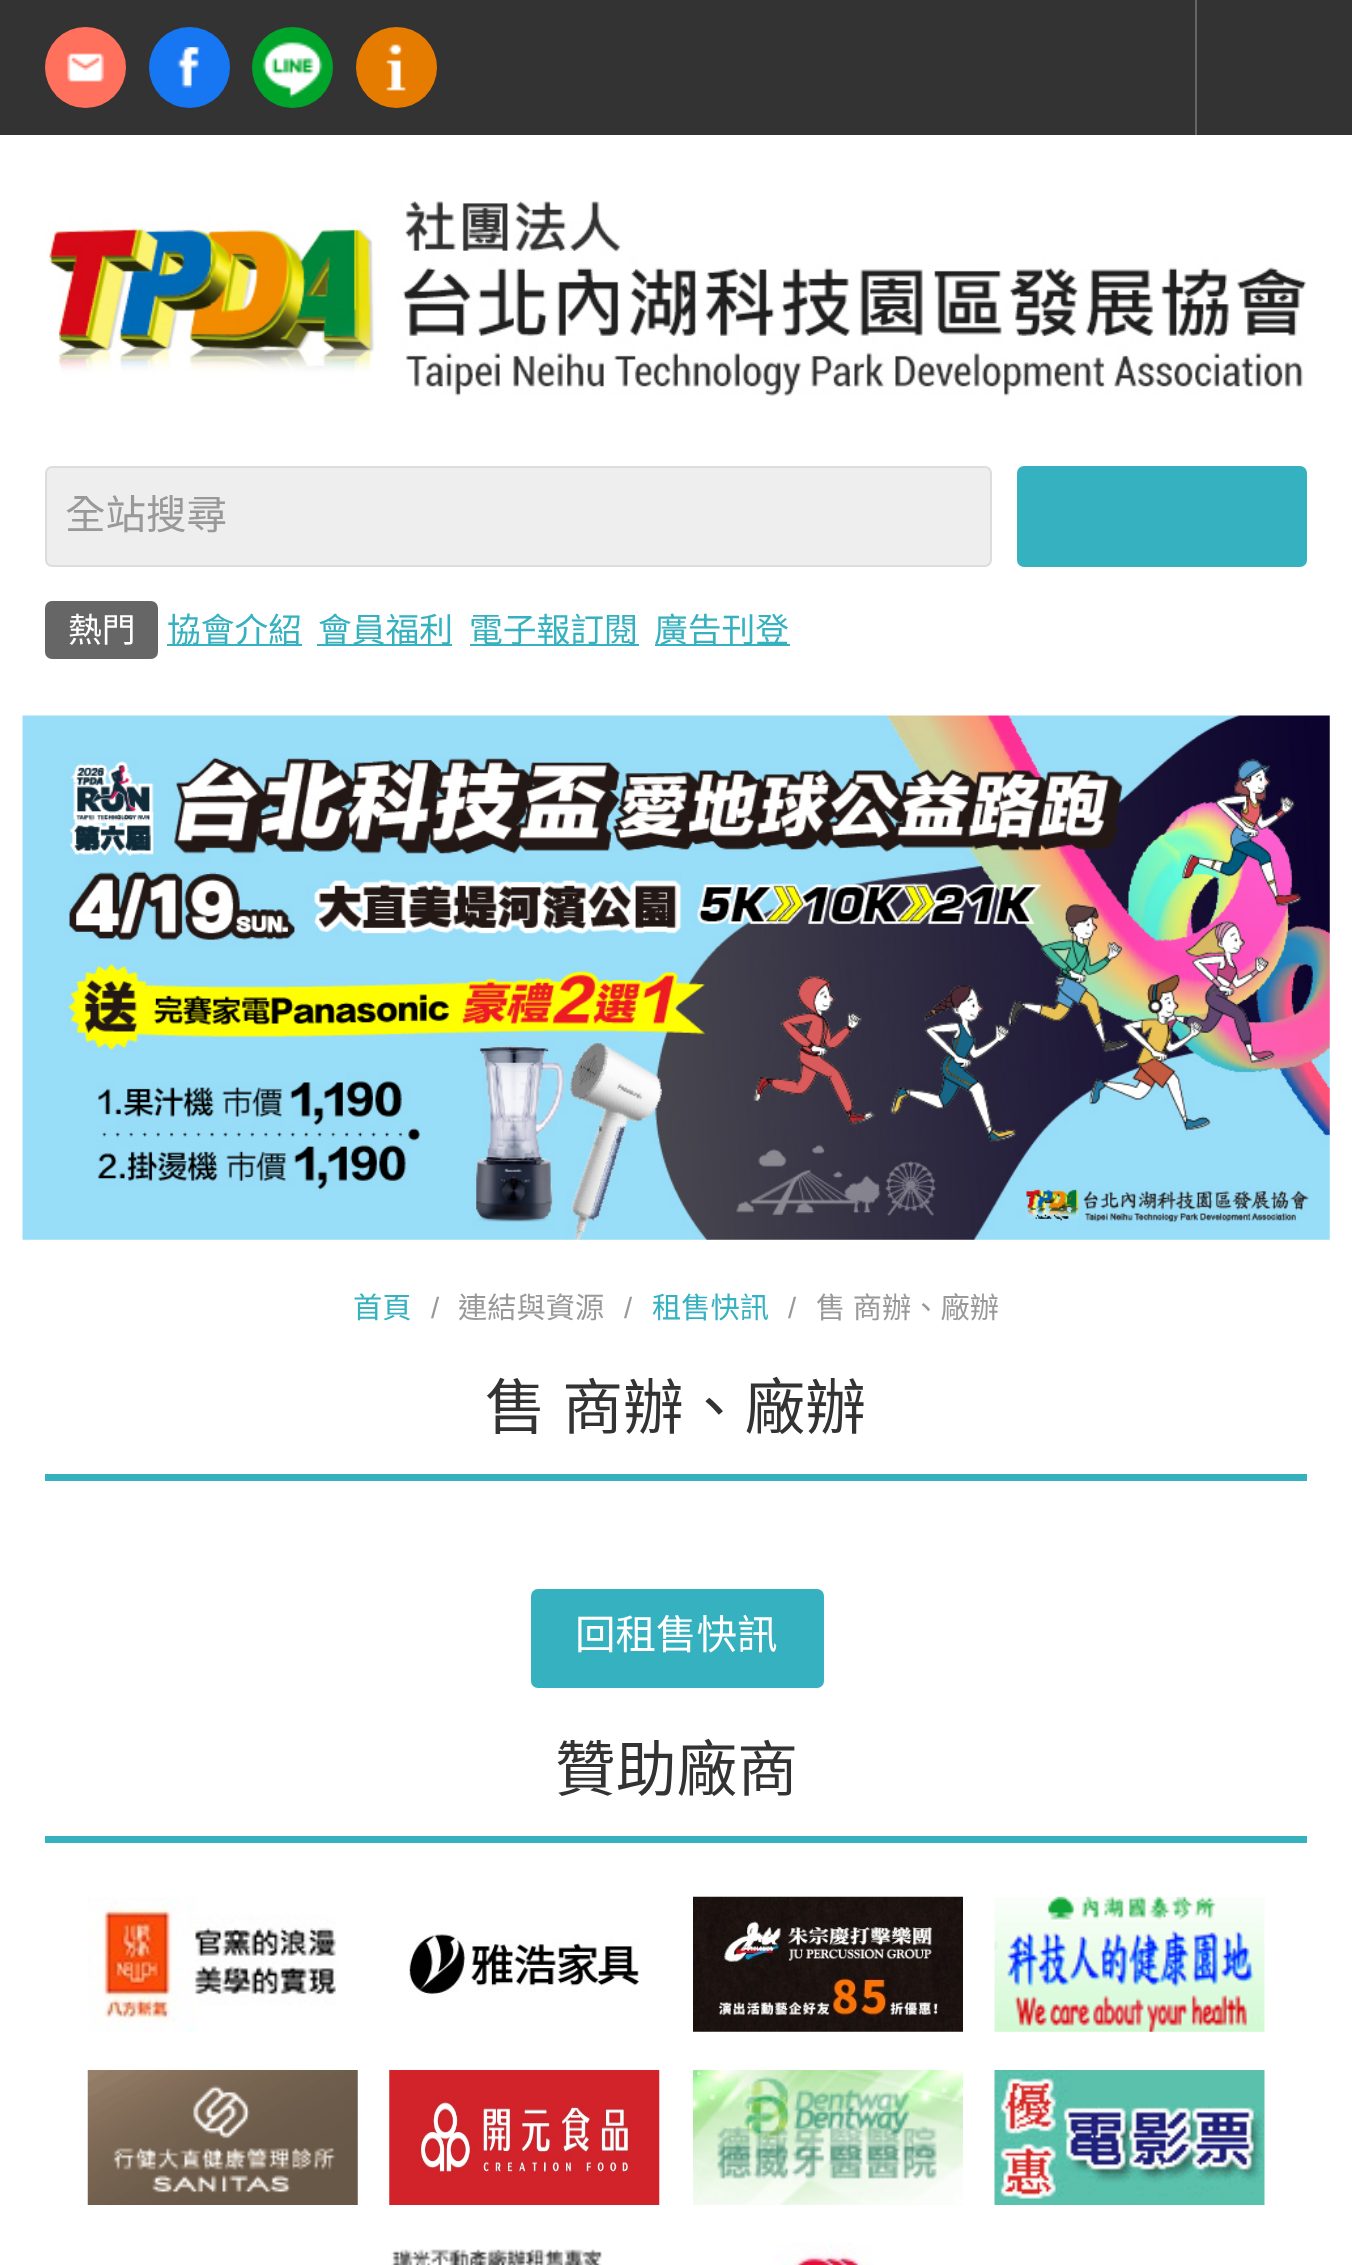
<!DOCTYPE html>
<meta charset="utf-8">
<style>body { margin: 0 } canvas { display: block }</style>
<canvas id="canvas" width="1352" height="2265"></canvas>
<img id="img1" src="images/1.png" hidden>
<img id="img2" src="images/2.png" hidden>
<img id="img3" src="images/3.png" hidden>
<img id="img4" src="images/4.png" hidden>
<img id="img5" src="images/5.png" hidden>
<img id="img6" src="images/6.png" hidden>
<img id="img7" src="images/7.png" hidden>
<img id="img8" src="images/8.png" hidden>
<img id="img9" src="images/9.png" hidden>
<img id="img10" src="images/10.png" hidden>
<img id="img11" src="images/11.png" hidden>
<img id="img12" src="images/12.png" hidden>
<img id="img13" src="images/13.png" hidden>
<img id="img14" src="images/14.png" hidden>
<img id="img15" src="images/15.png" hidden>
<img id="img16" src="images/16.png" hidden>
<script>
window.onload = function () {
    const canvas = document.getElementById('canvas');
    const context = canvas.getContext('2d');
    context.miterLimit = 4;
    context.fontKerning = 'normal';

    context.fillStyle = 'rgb(255, 255, 255)';
    context.fillRect(0, 0, 1352, 2265);
    context.fillStyle = 'rgb(51, 51, 51)';
    context.fillRect(0, 0, 1352, 135);
    context.fillStyle = 'rgb(255, 112, 93)';
    context.beginPath();
    context.arc(85.5, 67.5, 40.5, 0, 2 * Math.PI);
    context.fill();
    context.drawImage(document.getElementById('img1'), 67, 53, 38, 29);
    context.fillStyle = 'rgb(23, 118, 241)';
    context.beginPath();
    context.arc(189.5, 67.5, 40.5, 0, 2 * Math.PI);
    context.fill();
    context.drawImage(document.getElementById('img2'), 177, 47, 24, 41);
    context.fillStyle = 'rgb(0, 164, 43)';
    context.beginPath();
    context.arc(292.5, 67.5, 40.5, 0, 2 * Math.PI);
    context.fill();
    context.drawImage(document.getElementById('img3'), 262, 42, 61, 56);
    context.fillStyle = 'rgb(229, 124, 0)';
    context.beginPath();
    context.arc(396.5, 67.5, 40.5, 0, 2 * Math.PI);
    context.fill();
    context.drawImage(document.getElementById('img4'), 386, 44, 20, 47);
    context.fillStyle = 'rgb(102, 102, 102)';
    context.fillRect(1195, 0, 2, 135);
    context.drawImage(document.getElementById('img5'), 47, 201, 1259, 195);
    context.fillStyle = 'rgb(238, 238, 238)';
    context.beginPath();
    context.roundRect(46, 467, 945, 99, 6);
    context.fill();
    context.strokeStyle = 'rgb(221, 221, 221)';
    context.lineWidth = 2;
    context.stroke();
    context.fillStyle = 'rgb(54, 177, 191)';
    context.beginPath();
    context.roundRect(1017, 466, 290, 101, 7);
    context.fill();
    context.fillStyle = 'rgb(102, 102, 102)';
    context.beginPath();
    context.roundRect(45, 601, 113, 58, 7);
    context.fill();
    context.fillStyle = 'rgb(54, 177, 191)';
    context.fillRect(167, 644, 135, 2);
    context.fillRect(317, 644, 135, 2);
    context.fillRect(470, 644, 169, 2);
    context.fillRect(655, 644, 135, 2);
    context.drawImage(document.getElementById('img6'), 22, 715, 1308, 525);
    context.fillRect(45, 1474, 1262, 7);
    context.beginPath();
    context.roundRect(531, 1589, 293, 99, 7);
    context.fill();
    context.fillRect(45, 1836, 1262, 7);
    context.drawImage(document.getElementById('img7'), 88, 1897, 249, 135);
    context.drawImage(document.getElementById('img8'), 409, 1934, 231, 63);
    context.drawImage(document.getElementById('img9'), 693, 1896, 270, 136);
    context.drawImage(document.getElementById('img10'), 994, 1896, 271, 136);
    context.drawImage(document.getElementById('img11'), 87, 2070, 271, 135);
    context.drawImage(document.getElementById('img12'), 389, 2070, 271, 135);
    context.drawImage(document.getElementById('img13'), 693, 2070, 270, 135);
    context.drawImage(document.getElementById('img14'), 994, 2070, 271, 135);
    context.drawImage(document.getElementById('img15'), 391, 2249, 211, 16);
    context.drawImage(document.getElementById('img16'), 775, 2243, 98, 22);
    context.font = '40.5px Noto Sans CJK TC';
    context.fillStyle = 'rgb(153, 153, 153)';
    context.fillText('全站搜尋', 65, 529);
    context.font = '33.75px Noto Sans CJK TC';
    context.fillStyle = 'rgb(255, 255, 255)';
    context.fillText('熱門', 68, 642);
    context.fillStyle = 'rgb(54, 177, 191)';
    context.fillText('協會介紹', 167, 642);
    context.fillText('會員福利', 318, 642);
    context.fillText('電子報訂閱', 469, 642);
    context.fillText('廣告刊登', 654, 642);
    context.font = '29.25px Noto Sans CJK TC';
    context.fillText('首頁', 353, 1318);
    context.font = '29.25px Liberation Sans';
    context.fillStyle = 'rgb(153, 153, 153)';
    context.fillText('/', 431, 1318);
    context.font = '29.25px Noto Sans CJK TC';
    context.fillText('連結與資源', 458, 1318);
    context.font = '29.25px Liberation Sans';
    context.fillText('/', 624, 1318);
    context.font = '29.25px Noto Sans CJK TC';
    context.fillStyle = 'rgb(54, 177, 191)';
    context.fillText('租售快訊', 652, 1318);
    context.font = '29.25px Liberation Sans';
    context.fillStyle = 'rgb(153, 153, 153)';
    context.fillText('/', 788, 1318);
    context.wordSpacing = '1px';
    context.font = '29.25px Noto Sans CJK TC';
    context.fillText('售 商辦、廠辦', 816, 1318);
    context.wordSpacing = '3px';
    context.font = '60.75px Noto Sans CJK TC';
    context.fillStyle = 'rgb(51, 51, 51)';
    context.fillText('售 商辦、廠辦', 485, 1429);
    context.wordSpacing = '0px';
    context.font = '40.5px Noto Sans CJK TC';
    context.fillStyle = 'rgb(255, 255, 255)';
    context.fillText('回租售快訊', 575, 1649);
    context.font = '60.75px Noto Sans CJK TC';
    context.fillStyle = 'rgb(51, 51, 51)';
    context.fillText('贊助廠商', 555, 1791);
};
</script>
